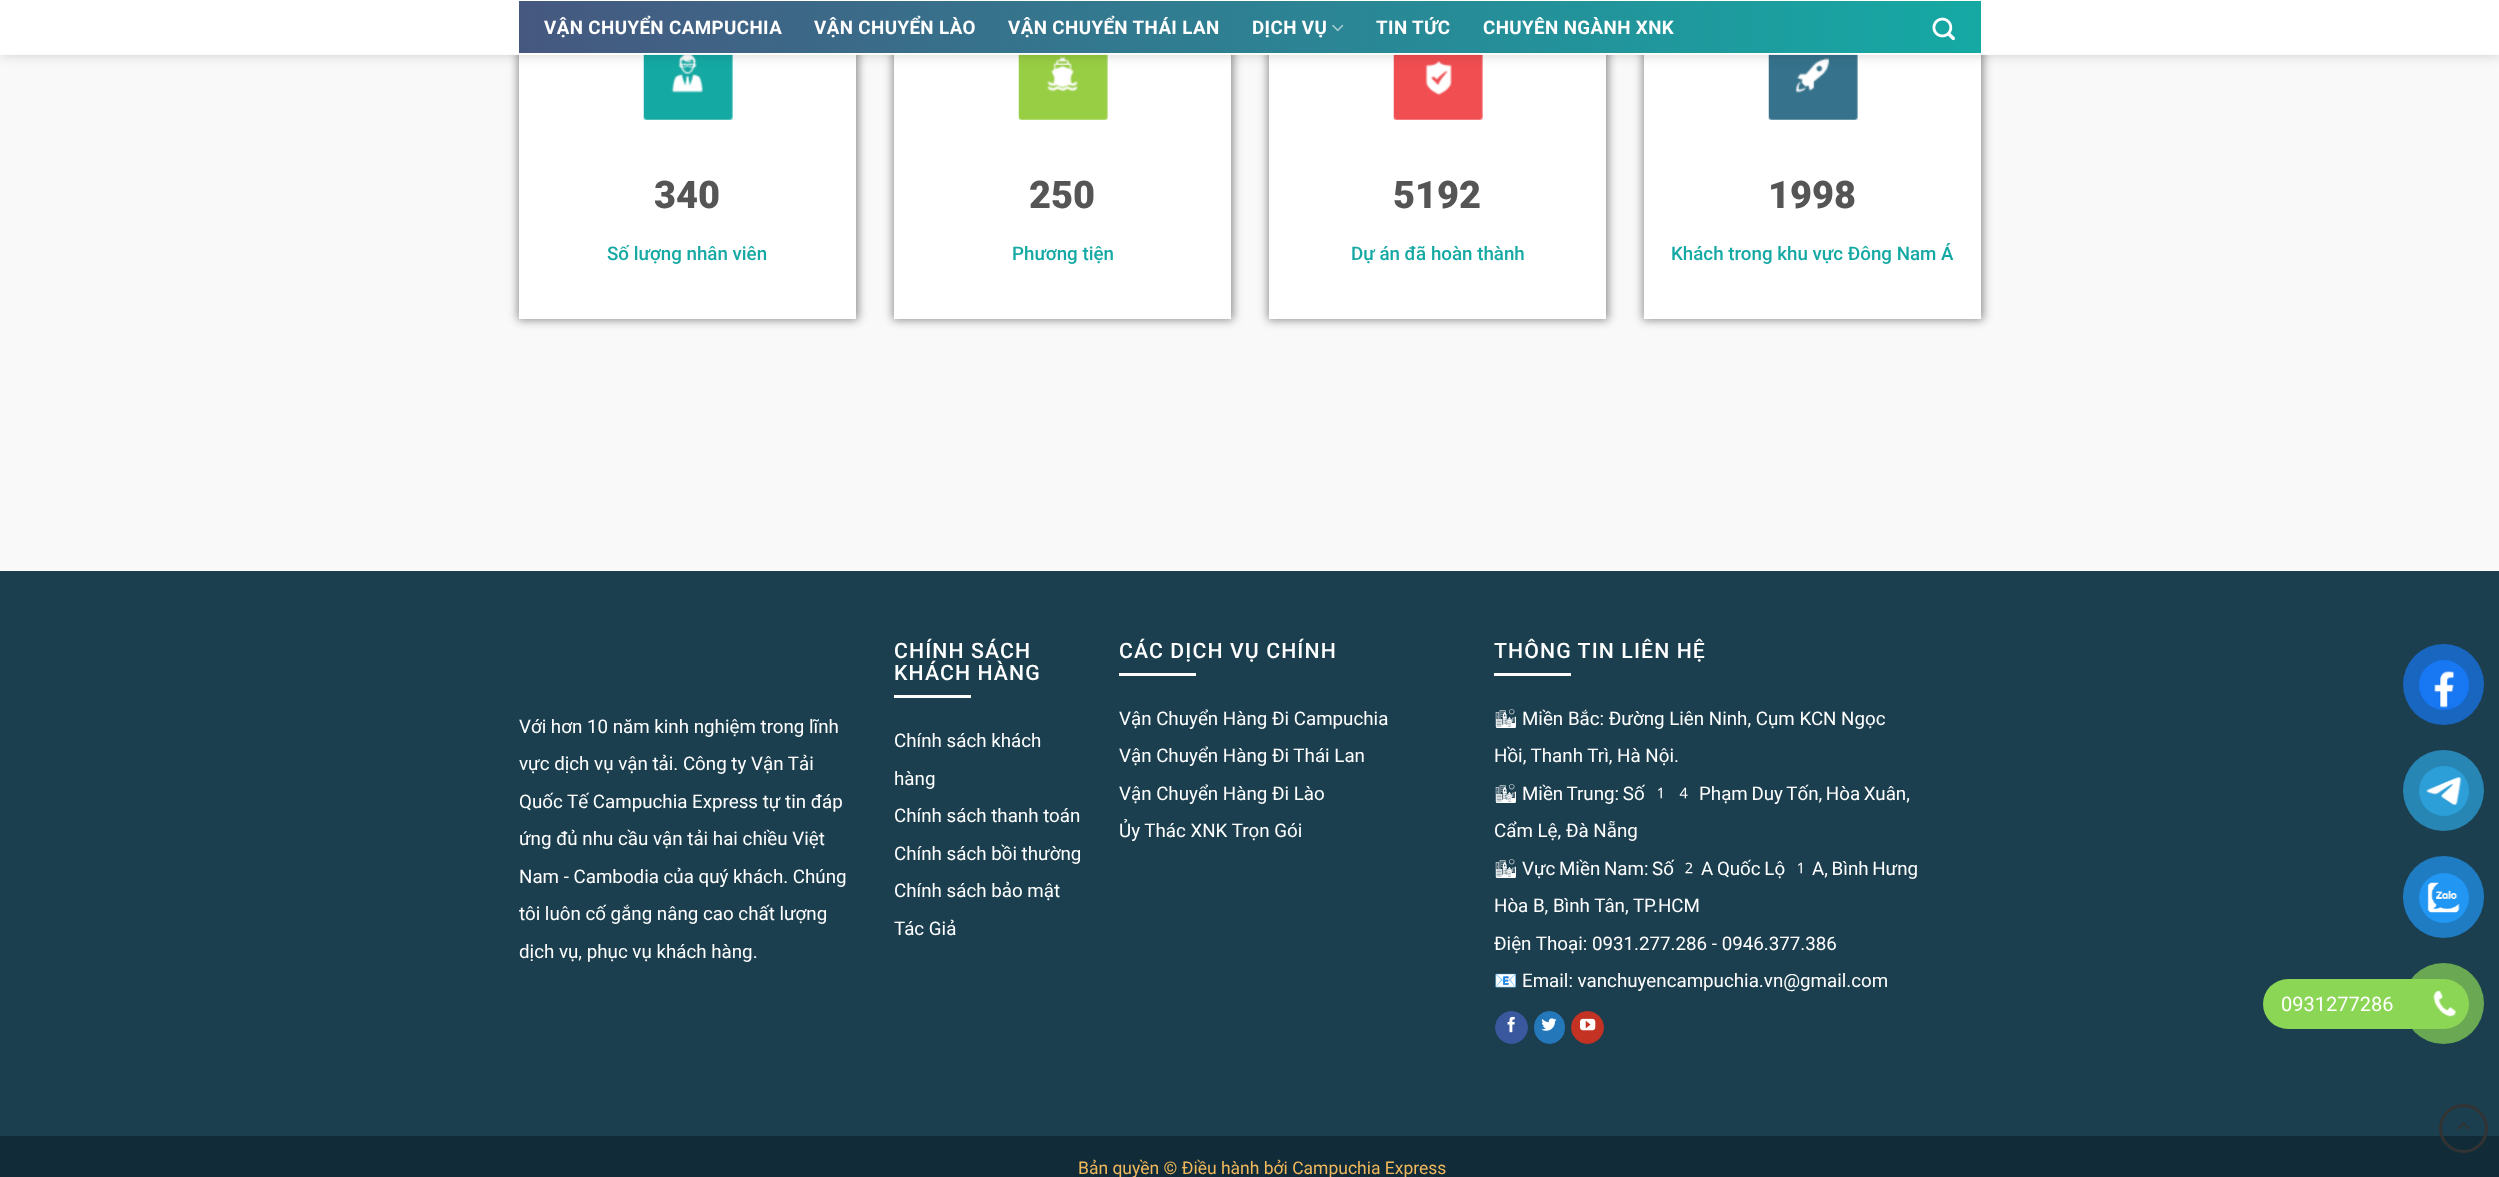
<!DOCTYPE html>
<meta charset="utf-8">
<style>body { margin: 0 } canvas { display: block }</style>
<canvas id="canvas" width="2499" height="1177"></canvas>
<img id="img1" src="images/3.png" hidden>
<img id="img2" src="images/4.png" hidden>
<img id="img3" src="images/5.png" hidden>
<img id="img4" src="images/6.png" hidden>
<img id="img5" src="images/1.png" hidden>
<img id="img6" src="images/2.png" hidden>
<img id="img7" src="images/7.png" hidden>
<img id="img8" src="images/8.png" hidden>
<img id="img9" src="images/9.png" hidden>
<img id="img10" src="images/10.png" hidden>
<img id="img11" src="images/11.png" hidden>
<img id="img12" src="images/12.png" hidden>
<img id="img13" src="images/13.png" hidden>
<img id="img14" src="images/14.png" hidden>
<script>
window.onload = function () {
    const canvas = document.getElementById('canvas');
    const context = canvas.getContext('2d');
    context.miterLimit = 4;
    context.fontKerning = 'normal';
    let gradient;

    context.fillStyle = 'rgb(249, 249, 249)';
    context.fillRect(0, 0, 2499, 1177);
    context.fillStyle = 'rgba(0, 0, 0, 0.45)';
    context.filter = 'blur(5px)';
    context.beginPath();
    context.rect(518, -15, 340, 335);
    context.fill();
    context.filter = 'none';
    context.fillStyle = 'rgb(255, 255, 255)';
    context.fillRect(519, 54, 337, 265);
    context.drawImage(document.getElementById('img1'), 643, 54, 90, 66);
    context.fillStyle = 'rgba(0, 0, 0, 0.45)';
    context.filter = 'blur(5px)';
    context.beginPath();
    context.rect(893, -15, 340, 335);
    context.fill();
    context.filter = 'none';
    context.fillStyle = 'rgb(255, 255, 255)';
    context.fillRect(894, 54, 337, 265);
    context.drawImage(document.getElementById('img2'), 1018, 54, 90, 66);
    context.fillStyle = 'rgba(0, 0, 0, 0.45)';
    context.filter = 'blur(5px)';
    context.beginPath();
    context.rect(1268, -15, 340, 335);
    context.fill();
    context.filter = 'none';
    context.fillStyle = 'rgb(255, 255, 255)';
    context.fillRect(1269, 54, 337, 265);
    context.drawImage(document.getElementById('img3'), 1393, 54, 90, 66);
    context.fillStyle = 'rgba(0, 0, 0, 0.45)';
    context.filter = 'blur(5px)';
    context.beginPath();
    context.rect(1643, -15, 340, 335);
    context.fill();
    context.filter = 'none';
    context.fillStyle = 'rgb(255, 255, 255)';
    context.fillRect(1644, 54, 337, 265);
    context.drawImage(document.getElementById('img4'), 1768, 54, 90, 66);
    context.fillStyle = 'rgba(0, 0, 0, 0.15)';
    context.filter = 'blur(6px)';
    context.beginPath();
    context.rect(1, 1, 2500, 55);
    context.fill();
    context.filter = 'none';
    context.fillStyle = 'rgb(255, 255, 255)';
    context.fillRect(0, 0, 2499, 54);
    gradient = context.createLinearGradient(519, 27, 1981, 27);
    gradient.addColorStop(0, 'rgb(70, 88, 128)');
    gradient.addColorStop(1, 'rgb(21, 169, 164)');
    context.fillStyle = gradient;
    context.fillRect(519, 1, 1462, 52);
    context.drawImage(document.getElementById('img5'), 1332, 24, 12, 8);
    context.drawImage(document.getElementById('img6'), 1932, 17, 23, 24);
    context.fillStyle = 'rgba(255, 255, 255, 0.9)';
    context.fillRect(0, 54, 2499, 1);
    context.fillStyle = 'rgb(27, 63, 79)';
    context.fillRect(0, 571, 2499, 565);
    context.fillStyle = 'rgb(255, 255, 255)';
    context.fillRect(0, 570, 2499, 1);
    context.fillRect(894, 695, 77, 3);
    context.fillRect(1119, 673, 77, 3);
    context.fillRect(1494, 673, 77, 3);
    context.fillStyle = 'rgb(58, 88, 157)';
    context.beginPath();
    context.arc(1511.5, 1027.5, 16, 0, 2 * Math.PI);
    context.fill();
    context.strokeStyle = 'rgb(58, 88, 157)';
    context.stroke();
    context.drawImage(document.getElementById('img7'), 1507, 1016, 8, 17);
    context.fillStyle = 'rgb(36, 120, 186)';
    context.beginPath();
    context.roundRect(1534.5, 1011.5, 30, 32, 15);
    context.fill();
    context.strokeStyle = 'rgb(36, 120, 186)';
    context.stroke();
    context.drawImage(document.getElementById('img8'), 1541, 1018, 16, 13);
    context.fillStyle = 'rgb(195, 50, 35)';
    context.beginPath();
    context.arc(1587.5, 1027.5, 16, 0, 2 * Math.PI);
    context.fill();
    context.strokeStyle = 'rgb(195, 50, 35)';
    context.stroke();
    context.drawImage(document.getElementById('img9'), 1580, 1018, 16, 13);
    context.fillStyle = 'rgb(17, 44, 56)';
    context.fillRect(0, 1136, 2499, 41);
    context.beginPath();
    context.arc(2463.5, 1128.5, 23, 0, 2 * Math.PI);
    context.strokeStyle = 'rgb(51, 51, 51)';
    context.lineWidth = 3;
    context.stroke();
    context.drawImage(document.getElementById('img10'), 2457, 1122, 13, 8);
    context.fillStyle = 'rgb(25, 102, 193)';
    context.beginPath();
    context.arc(2443.5, 684.5, 40.5, 0, 2 * Math.PI);
    context.fill();
    context.fillStyle = 'rgb(24, 119, 242)';
    context.beginPath();
    context.arc(2444, 685, 25, 0, 2 * Math.PI);
    context.fill();
    context.drawImage(document.getElementById('img11'), 2434, 671, 21, 37);
    context.fillStyle = 'rgb(40, 134, 180)';
    context.beginPath();
    context.arc(2443.5, 790.5, 40.5, 0, 2 * Math.PI);
    context.fill();
    context.fillStyle = 'rgb(44, 159, 216)';
    context.beginPath();
    context.arc(2444, 791, 25, 0, 2 * Math.PI);
    context.fill();
    context.drawImage(document.getElementById('img12'), 2426, 777, 36, 28);
    context.fillStyle = 'rgb(31, 124, 194)';
    context.beginPath();
    context.roundRect(2403, 856, 81, 82, 40.5);
    context.fill();
    context.fillStyle = 'rgb(33, 150, 243)';
    context.beginPath();
    context.arc(2444, 898, 25, 0, 2 * Math.PI);
    context.fill();
    context.drawImage(document.getElementById('img13'), 2427, 882, 33, 31);
    context.fillStyle = 'rgb(139, 214, 85)';
    context.beginPath();
    context.roundRect(2263, 979, 200, 50, 25);
    context.fill();
    context.fillStyle = 'rgba(139, 214, 85, 0.7)';
    context.beginPath();
    context.arc(2443.5, 1003.5, 40.5, 0, 2 * Math.PI);
    context.fill();
    context.fillStyle = 'rgb(139, 214, 85)';
    context.beginPath();
    context.arc(2444, 1004, 25, 0, 2 * Math.PI);
    context.fill();
    context.drawImage(document.getElementById('img14'), 2433, 990, 23, 27);
    context.letterSpacing = '0.4px';
    context.font = 'bold 18.75px Roboto';
    context.fillStyle = 'rgb(255, 255, 255)';
    context.fillText('VẬN CHUYỂN CAMPUCHIA', 544, 34);
    context.fillText('VẬN CHUYỂN LÀO', 814, 34);
    context.fillText('VẬN CHUYỂN THÁI LAN', 1008, 34);
    context.fillText('DỊCH VỤ', 1252, 34);
    context.fillText('TIN TỨC', 1376, 34);
    context.fillText('CHUYÊN NGÀNH XNK', 1483, 34);
    context.letterSpacing = '0px';
    context.font = '900 38px Roboto';
    context.fillStyle = 'rgb(85, 85, 85)';
    context.fillText('340', 654, 208);
    context.font = '500 18.75px Roboto';
    context.fillStyle = 'rgb(21, 169, 164)';
    context.fillText('Số lượng nhân viên', 607, 260);
    context.font = '900 38px Roboto';
    context.fillStyle = 'rgb(85, 85, 85)';
    context.fillText('250', 1029, 208);
    context.font = '500 18.75px Roboto';
    context.fillStyle = 'rgb(21, 169, 164)';
    context.fillText('Phương tiện', 1012, 260);
    context.font = '900 38px Roboto';
    context.fillStyle = 'rgb(85, 85, 85)';
    context.fillText('5192', 1393, 208);
    context.font = '500 18.75px Roboto';
    context.fillStyle = 'rgb(21, 169, 164)';
    context.fillText('Dự án đã hoàn thành', 1351, 260);
    context.font = '900 38px Roboto';
    context.fillStyle = 'rgb(85, 85, 85)';
    context.fillText('1998', 1768, 208);
    context.font = '500 18.75px Roboto';
    context.fillStyle = 'rgb(21, 169, 164)';
    context.fillText('Khách trong khu vực Đông Nam Á', 1671, 260);
    context.font = '18.75px Roboto';
    context.fillStyle = 'rgb(255, 255, 255)';
    context.fillText('Với hơn 10 năm kinh nghiệm trong lĩnh', 519, 733);
    context.fillText('vực dịch vụ vận tải. Công ty Vận Tải', 519, 770);
    context.fillText('Quốc Tế Campuchia Express tự tin đáp', 519, 808);
    context.fillText('ứng đủ nhu cầu vận tải hai chiều Việt', 519, 845);
    context.fillText('Nam - Cambodia của quý khách. Chúng', 519, 883);
    context.fillText('tôi luôn cố gắng nâng cao chất lượng', 519, 920);
    context.fillText('dịch vụ, phục vụ khách hàng.', 519, 958);
    context.letterSpacing = '1.1px';
    context.font = '500 21.25px Roboto';
    context.fillText('CHÍNH SÁCH', 894, 658);
    context.fillText('KHÁCH HÀNG', 894, 680);
    context.letterSpacing = '0px';
    context.font = '18.75px Roboto';
    context.fillText('Chính sách khách', 894, 747);
    context.fillText('hàng', 894, 785);
    context.fillText('Chính sách thanh toán', 894, 822);
    context.fillText('Chính sách bồi thường', 894, 860);
    context.fillText('Chính sách bảo mật', 894, 897);
    context.fillText('Tác Giả', 894, 935);
    context.letterSpacing = '1.1px';
    context.font = '500 21.25px Roboto';
    context.fillText('CÁC DỊCH VỤ CHÍNH', 1119, 658);
    context.letterSpacing = '0px';
    context.font = '18.75px Roboto';
    context.fillText('Vận Chuyển Hàng Đi Campuchia', 1119, 725);
    context.fillText('Vận Chuyển Hàng Đi Thái Lan', 1119, 762);
    context.fillText('Vận Chuyển Hàng Đi Lào', 1119, 800);
    context.fillText('Ủy Thác XNK Trọn Gói', 1119, 837);
    context.letterSpacing = '1.1px';
    context.font = '500 21.25px Roboto';
    context.fillText('THÔNG TIN LIÊN HỆ', 1494, 658);
    context.letterSpacing = '0px';
    context.font = '18.75px Noto Emoji';
    context.fillText('🏙', 1494, 725);
    context.font = '18.75px Roboto';
    context.fillText('Miền Bắc: Đường Liên Ninh, Cụm KCN Ngọc', 1522, 725);
    context.fillText('Hồi, Thanh Trì, Hà Nội.', 1494, 762);
    context.font = '18.75px Noto Emoji';
    context.fillText('🏙', 1494, 800);
    context.wordSpacing = '-1px';
    context.font = '18.75px Roboto';
    context.fillText('Miền Trung: Số', 1522, 800);
    context.wordSpacing = '0px';
    context.font = '18.75px Noto Emoji';
    context.fillText('14', 1648, 800);
    context.wordSpacing = '-1px';
    context.font = '18.75px Roboto';
    context.fillText('Phạm Duy Tốn, Hòa Xuân,', 1699, 800);
    context.wordSpacing = '0px';
    context.fillText('Cẩm Lệ, Đà Nẵng', 1494, 837);
    context.font = '18.75px Noto Emoji';
    context.fillText('🏙', 1494, 875);
    context.wordSpacing = '-1px';
    context.font = '18.75px Roboto';
    context.fillText('Vực Miền Nam: Số', 1522, 875);
    context.wordSpacing = '0px';
    context.font = '18.75px Noto Emoji';
    context.fillText('2', 1677, 875);
    context.wordSpacing = '-1px';
    context.font = '18.75px Roboto';
    context.fillText('A Quốc Lộ', 1701, 875);
    context.wordSpacing = '0px';
    context.font = '18.75px Noto Emoji';
    context.fillText('1', 1788, 875);
    context.wordSpacing = '-1px';
    context.font = '18.75px Roboto';
    context.fillText('A, Bình Hưng', 1812, 875);
    context.wordSpacing = '0px';
    context.fillText('Hòa B, Bình Tân, TP.HCM', 1494, 912);
    context.fillText('Điện Thoại: 0931.277.286 - 0946.377.386', 1494, 950);
    context.font = '18.75px Noto Color Emoji';
    context.fillText('📧', 1494, 987);
    context.font = '18.75px Roboto';
    context.fillText('Email: vanchuyencampuchia.vn@gmail.com', 1522, 987);
    context.font = '17.5px Roboto';
    context.fillStyle = 'rgb(242, 184, 92)';
    context.fillText('Bản quyền © Điều hành bởi Campuchia Express', 1078, 1174);
    context.font = '20px Roboto';
    context.fillStyle = 'rgb(255, 255, 255)';
    context.fillText('0931277286', 2281, 1011);
};
</script>
